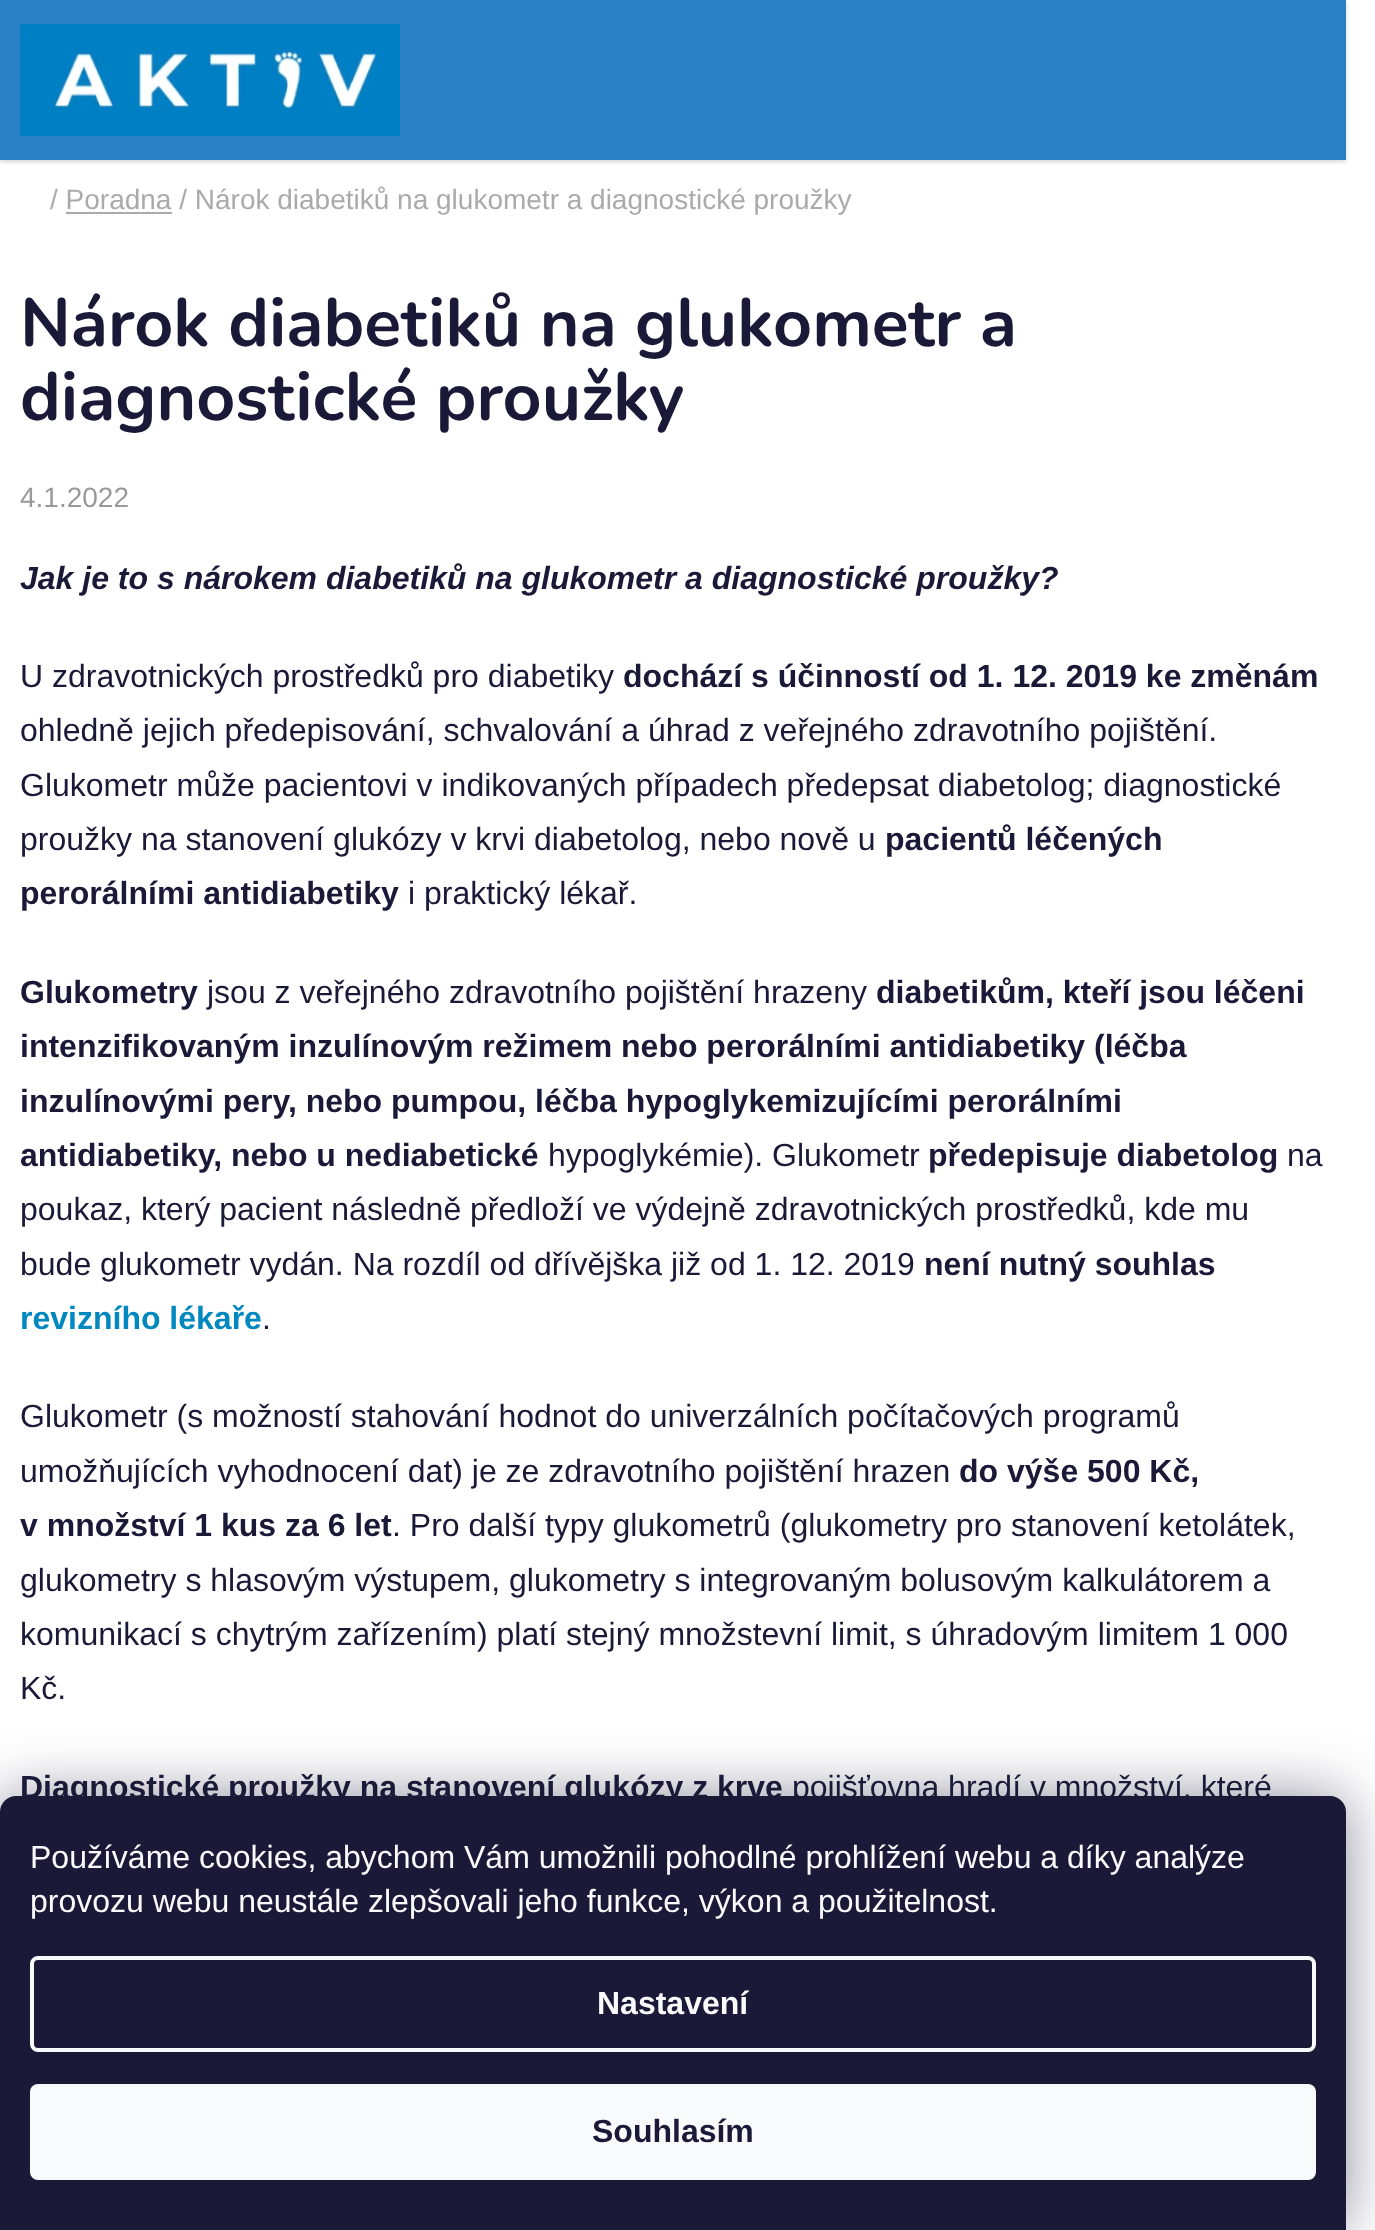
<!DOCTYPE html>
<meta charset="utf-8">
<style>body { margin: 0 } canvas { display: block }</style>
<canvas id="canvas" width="1375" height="2230"></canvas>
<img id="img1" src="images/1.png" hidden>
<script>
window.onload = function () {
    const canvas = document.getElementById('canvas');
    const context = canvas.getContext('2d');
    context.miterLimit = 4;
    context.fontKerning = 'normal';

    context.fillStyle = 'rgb(255, 255, 255)';
    context.fillRect(0, 0, 1375, 2230);
    context.fillStyle = 'rgba(0, 0, 0, 0.16)';
    context.filter = 'blur(2px)';
    context.beginPath();
    context.rect(0, 2, 1346, 160);
    context.fill();
    context.filter = 'none';
    context.fillStyle = 'rgb(41, 128, 196)';
    context.fillRect(0, 0, 1346, 160);
    context.drawImage(document.getElementById('img1'), 20, 24, 380, 112);
    context.fillStyle = 'rgb(170, 170, 170)';
    context.fillRect(66, 212, 106, 2);
    context.fillStyle = 'rgba(27, 25, 57, 0.5)';
    context.filter = 'blur(30px)';
    context.beginPath();
    context.roundRect(0, 1796, 1346, 434, 16);
    context.fill();
    context.filter = 'none';
    context.fillStyle = 'rgb(26, 25, 55)';
    context.beginPath();
    context.roundRect(0, 1796, 1346, 434, [16, 16, 0, 0]);
    context.fill();
    context.beginPath();
    context.roundRect(32, 1958, 1282, 92, 6);
    context.strokeStyle = 'rgb(248, 250, 251)';
    context.lineWidth = 4;
    context.stroke();
    context.fillStyle = 'rgb(248, 250, 251)';
    context.beginPath();
    context.roundRect(30, 2084, 1286, 96, 8);
    context.fill();
    context.font = '28px Liberation Sans';
    context.fillStyle = 'rgb(170, 170, 170)';
    context.fillText('/ Poradna / Nárok diabetiků na glukometr a diagnostické proužky', 50, 209);
    context.font = 'bold 68px Nunito';
    context.fillStyle = 'rgb(26, 25, 55)';
    context.fillText('Nárok diabetiků na glukometr a', 20, 346);
    context.fillText('diagnostické proužky', 20, 420);
    context.font = '28px Liberation Sans';
    context.fillStyle = 'rgb(153, 153, 153)';
    context.fillText('4.1.2022', 20, 507);
    context.font = 'italic bold 32px Liberation Sans';
    context.fillStyle = 'rgb(26, 25, 55)';
    context.fillText('Jak je to s nárokem diabetiků na glukometr a diagnostické proužky?', 20, 589);
    context.font = '32px Liberation Sans';
    context.fillText('U zdravotnických prostředků pro diabetiky', 20, 687);
    context.font = 'bold 32px Liberation Sans';
    context.fillText('dochází s účinností od 1. 12. 2019 ke změnám', 623, 687);
    context.font = '32px Liberation Sans';
    context.fillText('ohledně jejich předepisování, schvalování a úhrad z veřejného zdravotního pojištění.', 20, 741);
    context.fillText('Glukometr může pacientovi v indikovaných případech předepsat diabetolog; diagnostické', 20, 796);
    context.fillText('proužky na stanovení glukózy v krvi diabetolog, nebo nově u', 20, 850);
    context.font = 'bold 32px Liberation Sans';
    context.fillText('pacientů léčených', 885, 850);
    context.fillText('perorálními antidiabetiky', 20, 904);
    context.font = '32px Liberation Sans';
    context.fillText('i praktický lékař.', 408, 904);
    context.font = 'bold 32px Liberation Sans';
    context.fillText('Glukometry', 20, 1003);
    context.font = '32px Liberation Sans';
    context.fillText('jsou z veřejného zdravotního pojištění hrazeny', 207, 1003);
    context.font = 'bold 32px Liberation Sans';
    context.fillText('diabetikům, kteří jsou léčeni', 876, 1003);
    context.fillText('intenzifikovaným inzulínovým režimem nebo perorálními antidiabetiky (léčba', 20, 1057);
    context.fillText('inzulínovými pery, nebo pumpou, léčba hypoglykemizujícími perorálními', 20, 1112);
    context.fillText('antidiabetiky, nebo u nediabetické', 20, 1166);
    context.font = '32px Liberation Sans';
    context.fillText('hypoglykémie). Glukometr', 548, 1166);
    context.font = 'bold 32px Liberation Sans';
    context.fillText('předepisuje diabetolog', 928, 1166);
    context.font = '32px Liberation Sans';
    context.fillText('na', 1287, 1166);
    context.fillText('poukaz, který pacient následně předloží ve výdejně zdravotnických prostředků, kde mu', 20, 1220);
    context.fillText('bude glukometr vydán. Na rozdíl od dřívějška již od 1. 12. 2019', 20, 1275);
    context.font = 'bold 32px Liberation Sans';
    context.fillText('není nutný souhlas', 924, 1275);
    context.fillStyle = 'rgb(0, 136, 191)';
    context.fillText('revizního lékaře', 20, 1329);
    context.font = '32px Liberation Sans';
    context.fillStyle = 'rgb(26, 25, 55)';
    context.fillText('.', 262, 1329);
    context.fillText('Glukometr (s možností stahování hodnot do univerzálních počítačových programů', 20, 1427);
    context.fillText('umožňujících vyhodnocení dat) je ze zdravotního pojištění hrazen', 20, 1482);
    context.font = 'bold 32px Liberation Sans';
    context.fillText('do výše 500 Kč,', 959, 1482);
    context.fillText('v množství 1 kus za 6 let', 20, 1536);
    context.font = '32px Liberation Sans';
    context.fillText('. Pro další typy glukometrů (glukometry pro stanovení ketolátek,', 392, 1536);
    context.fillText('glukometry s hlasovým výstupem, glukometry s integrovaným bolusovým kalkulátorem a', 20, 1591);
    context.fillText('komunikací s chytrým zařízením) platí stejný množstevní limit, s úhradovým limitem 1 000', 20, 1645);
    context.fillText('Kč.', 20, 1699);
    context.font = 'bold 32px Liberation Sans';
    context.fillText('Diagnostické proužky na stanovení glukózy z krve', 20, 1798);
    context.font = '32px Liberation Sans';
    context.fillText('pojišťovna hradí v množství, které', 792, 1798);
    context.fillStyle = 'rgb(248, 250, 251)';
    context.fillText('Používáme cookies, abychom Vám umožnili pohodlné prohlížení webu a díky analýze', 30, 1868);
    context.fillText('provozu webu neustále zlepšovali jeho funkce, výkon a použitelnost.', 30, 1912);
    context.font = 'bold 32px Liberation Sans';
    context.fillText('Nastavení', 597, 2014);
    context.fillStyle = 'rgb(26, 25, 55)';
    context.fillText('Souhlasím', 592, 2142);
};
</script>
